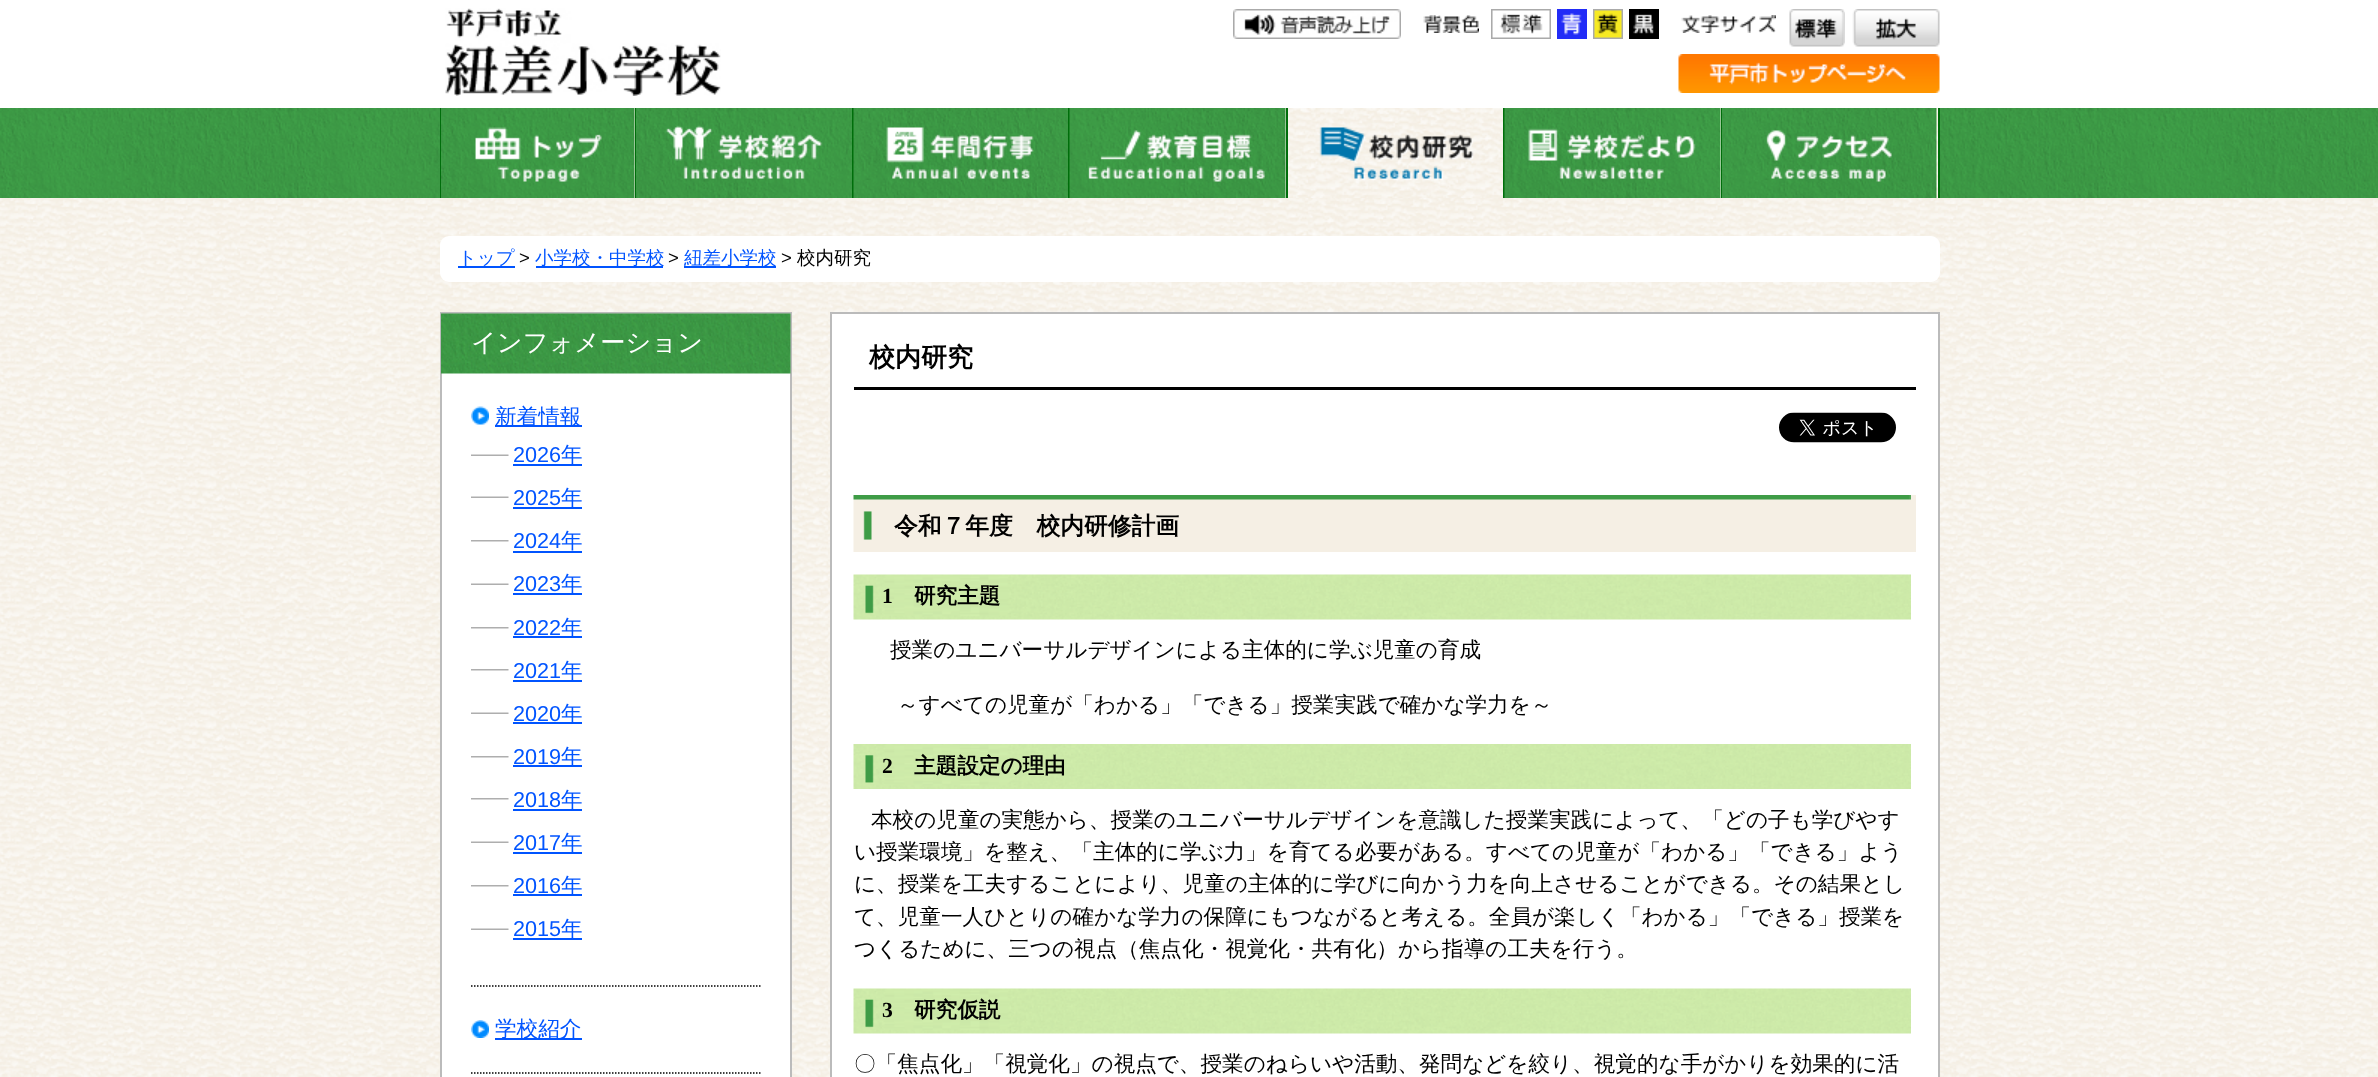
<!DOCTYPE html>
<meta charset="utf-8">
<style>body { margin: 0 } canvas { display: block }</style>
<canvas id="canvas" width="2378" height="1077"></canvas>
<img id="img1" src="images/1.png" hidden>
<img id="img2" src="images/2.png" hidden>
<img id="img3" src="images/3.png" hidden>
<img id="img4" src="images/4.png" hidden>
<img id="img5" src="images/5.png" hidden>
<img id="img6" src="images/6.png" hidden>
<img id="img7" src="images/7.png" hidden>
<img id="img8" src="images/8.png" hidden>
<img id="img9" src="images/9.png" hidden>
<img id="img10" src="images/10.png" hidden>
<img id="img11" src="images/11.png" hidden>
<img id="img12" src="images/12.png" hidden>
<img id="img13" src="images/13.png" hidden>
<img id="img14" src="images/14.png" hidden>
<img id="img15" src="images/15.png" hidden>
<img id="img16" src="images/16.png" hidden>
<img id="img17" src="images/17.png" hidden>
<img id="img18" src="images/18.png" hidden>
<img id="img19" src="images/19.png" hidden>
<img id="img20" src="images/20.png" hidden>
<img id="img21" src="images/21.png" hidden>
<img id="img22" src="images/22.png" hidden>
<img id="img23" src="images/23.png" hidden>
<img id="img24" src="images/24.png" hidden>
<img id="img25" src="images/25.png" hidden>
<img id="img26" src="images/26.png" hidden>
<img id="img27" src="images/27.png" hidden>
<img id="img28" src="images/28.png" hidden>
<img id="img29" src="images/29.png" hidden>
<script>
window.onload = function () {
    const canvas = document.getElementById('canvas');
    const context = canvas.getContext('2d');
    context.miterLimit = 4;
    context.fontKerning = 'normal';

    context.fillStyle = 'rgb(255, 255, 255)';
    context.fillRect(0, 0, 2378, 1077);
    context.drawImage(document.getElementById('img1'), 0, 198, 2378, 879);
    context.drawImage(document.getElementById('img2'), 445, 8, 276, 88);
    context.drawImage(document.getElementById('img3'), 1233, 9, 168, 30);
    context.drawImage(document.getElementById('img4'), 1423, 15, 56, 18);
    context.drawImage(document.getElementById('img5'), 1491, 9, 60, 30);
    context.drawImage(document.getElementById('img6'), 1557, 9, 30, 30);
    context.drawImage(document.getElementById('img7'), 1593, 9, 30, 30);
    context.drawImage(document.getElementById('img8'), 1629, 9, 30, 30);
    context.drawImage(document.getElementById('img9'), 1681, 15, 95, 18);
    context.drawImage(document.getElementById('img10'), 1789, 9, 56, 38);
    context.drawImage(document.getElementById('img11'), 1852, 9, 88, 38);
    context.drawImage(document.getElementById('img12'), 1678, 54, 262, 39);
    context.drawImage(document.getElementById('img13'), 0, 108, 2378, 90);
    context.drawImage(document.getElementById('img14'), 634, 108, 1304, 90);
    context.fillStyle = 'rgb(0, 110, 11)';
    context.fillRect(1938, 108, 2, 90);
    context.fillRect(440, 108, 1, 90);
    context.fillRect(635, 108, 1, 90);
    context.drawImage(document.getElementById('img15'), 441, 108, 194, 90);
    context.fillRect(852, 108, 2, 90);
    context.drawImage(document.getElementById('img16'), 636, 108, 216, 90);
    context.fillRect(1068, 108, 2, 90);
    context.drawImage(document.getElementById('img17'), 853, 108, 215, 90);
    context.fillRect(1286, 108, 2, 90);
    context.drawImage(document.getElementById('img18'), 1069, 108, 217, 90);
    context.fillRect(1503, 108, 2, 90);
    context.fillRect(1721, 108, 1, 90);
    context.drawImage(document.getElementById('img19'), 1504, 108, 217, 90);
    context.drawImage(document.getElementById('img20'), 1722, 108, 215, 90);
    context.fillStyle = 'rgb(255, 255, 255)';
    context.beginPath();
    context.roundRect(440, 236, 1500, 46, 9);
    context.fill();
    context.fillStyle = 'rgb(0, 84, 255)';
    context.fillRect(458, 266, 57, 2);
    context.fillRect(536, 266, 127, 2);
    context.fillRect(684, 266, 92, 2);
    context.fillStyle = 'rgb(255, 255, 255)';
    context.fillRect(442, 373, 348, 704);
    context.strokeStyle = 'rgb(187, 187, 187)';
    context.lineWidth = 2;
    context.strokeRect(441, 313, 350, 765);
    context.drawImage(document.getElementById('img21'), 441, 313, 350, 61);
    context.beginPath();
    context.moveTo(471, 986);
    context.lineTo(760.5, 986);
    context.strokeStyle = 'rgb(0, 0, 0)';
    context.lineWidth = 1.5;
    context.setLineDash([1.5, 1.5]);
    context.stroke();
    context.drawImage(document.getElementById('img22'), 471, 406, 18, 19);
    context.fillStyle = 'rgb(0, 84, 255)';
    context.fillRect(495, 425, 87, 2);
    context.drawImage(document.getElementById('img23'), 471, 454, 38, 2);
    context.fillRect(513, 464, 69, 2);
    context.drawImage(document.getElementById('img23'), 471, 496, 38, 2);
    context.fillRect(513, 507, 69, 2);
    context.drawImage(document.getElementById('img24'), 471, 540, 38, 2);
    context.fillRect(513, 551, 69, 2);
    context.drawImage(document.getElementById('img23'), 471, 583, 38, 2);
    context.fillRect(513, 593, 69, 2);
    context.drawImage(document.getElementById('img24'), 471, 627, 38, 2);
    context.fillRect(513, 636, 69, 2);
    context.drawImage(document.getElementById('img24'), 471, 669, 38, 2);
    context.fillRect(513, 680, 69, 2);
    context.drawImage(document.getElementById('img23'), 471, 712, 38, 2);
    context.fillRect(513, 722, 69, 2);
    context.drawImage(document.getElementById('img24'), 471, 756, 38, 2);
    context.fillRect(513, 765, 69, 2);
    context.drawImage(document.getElementById('img24'), 471, 798, 38, 2);
    context.fillRect(513, 809, 69, 2);
    context.drawImage(document.getElementById('img23'), 471, 841, 38, 2);
    context.fillRect(513, 852, 69, 2);
    context.drawImage(document.getElementById('img24'), 471, 885, 38, 2);
    context.fillRect(513, 894, 69, 2);
    context.drawImage(document.getElementById('img23'), 471, 928, 38, 2);
    context.fillRect(513, 938, 69, 2);
    context.beginPath();
    context.moveTo(471, 1073);
    context.lineTo(760.5, 1073);
    context.stroke();
    context.drawImage(document.getElementById('img25'), 471, 1020, 18, 18);
    context.fillRect(495, 1038, 87, 2);
    context.fillStyle = 'rgb(255, 255, 255)';
    context.beginPath();
    context.rect(831, 313, 1108, 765);
    context.fill();
    context.strokeStyle = 'rgb(187, 187, 187)';
    context.lineWidth = 2;
    context.setLineDash([]);
    context.stroke();
    context.fillStyle = 'rgb(0, 0, 0)';
    context.fillRect(854, 387, 1062, 3);
    context.drawImage(document.getElementById('img26'), 1779, 412, 117, 31);
    context.fillStyle = 'rgb(245, 239, 228)';
    context.fillRect(1911, 495, 5, 57);
    context.drawImage(document.getElementById('img27'), 853, 495, 1058, 57);
    context.drawImage(document.getElementById('img28'), 853, 574, 1058, 46);
    context.drawImage(document.getElementById('img29'), 853, 744, 1058, 45);
    context.drawImage(document.getElementById('img28'), 853, 988, 1058, 46);
    context.font = '500 18.5px WenQuanYi Zen Hei';
    context.fillStyle = 'rgb(0, 84, 255)';
    context.fillText('トップ', 458, 264);
    context.font = '18.5px Liberation Sans';
    context.fillStyle = 'rgb(0, 0, 0)';
    context.fillText('>', 519, 264);
    context.font = '500 18.5px WenQuanYi Zen Hei';
    context.fillStyle = 'rgb(0, 84, 255)';
    context.fillText('小学校・中学校', 535, 264);
    context.font = '18.5px Liberation Sans';
    context.fillStyle = 'rgb(0, 0, 0)';
    context.fillText('>', 668, 264);
    context.font = '500 18.5px WenQuanYi Zen Hei';
    context.fillStyle = 'rgb(0, 84, 255)';
    context.fillText('紐差小学校', 684, 264);
    context.font = '18.5px Liberation Sans';
    context.fillStyle = 'rgb(0, 0, 0)';
    context.fillText('>', 781, 264);
    context.font = '500 18.5px WenQuanYi Zen Hei';
    context.fillText('校内研究', 797, 264);
    context.font = '500 25.25px WenQuanYi Zen Hei';
    context.fillStyle = 'rgb(255, 255, 255)';
    context.fillText('インフォメーション', 471, 351);
    context.font = '500 21.6px WenQuanYi Zen Hei';
    context.fillStyle = 'rgb(0, 84, 255)';
    context.fillText('新着情報', 495, 424);
    context.font = '21.6px Liberation Sans';
    context.fillText('2026', 513, 462);
    context.font = '500 21.6px WenQuanYi Zen Hei';
    context.fillText('年', 561, 462);
    context.font = '21.6px Liberation Sans';
    context.fillText('2025', 513, 505);
    context.font = '500 21.6px WenQuanYi Zen Hei';
    context.fillText('年', 561, 505);
    context.font = '21.6px Liberation Sans';
    context.fillText('2024', 513, 548);
    context.font = '500 21.6px WenQuanYi Zen Hei';
    context.fillText('年', 561, 548);
    context.font = '21.6px Liberation Sans';
    context.fillText('2023', 513, 591);
    context.font = '500 21.6px WenQuanYi Zen Hei';
    context.fillText('年', 561, 591);
    context.font = '21.6px Liberation Sans';
    context.fillText('2022', 513, 635);
    context.font = '500 21.6px WenQuanYi Zen Hei';
    context.fillText('年', 561, 635);
    context.font = '21.6px Liberation Sans';
    context.fillText('2021', 513, 678);
    context.font = '500 21.6px WenQuanYi Zen Hei';
    context.fillText('年', 561, 678);
    context.font = '21.6px Liberation Sans';
    context.fillText('2020', 513, 721);
    context.font = '500 21.6px WenQuanYi Zen Hei';
    context.fillText('年', 561, 721);
    context.font = '21.6px Liberation Sans';
    context.fillText('2019', 513, 764);
    context.font = '500 21.6px WenQuanYi Zen Hei';
    context.fillText('年', 561, 764);
    context.font = '21.6px Liberation Sans';
    context.fillText('2018', 513, 807);
    context.font = '500 21.6px WenQuanYi Zen Hei';
    context.fillText('年', 561, 807);
    context.font = '21.6px Liberation Sans';
    context.fillText('2017', 513, 850);
    context.font = '500 21.6px WenQuanYi Zen Hei';
    context.fillText('年', 561, 850);
    context.font = '21.6px Liberation Sans';
    context.fillText('2016', 513, 893);
    context.font = '500 21.6px WenQuanYi Zen Hei';
    context.fillText('年', 561, 893);
    context.font = '21.6px Liberation Sans';
    context.fillText('2015', 513, 936);
    context.font = '500 21.6px WenQuanYi Zen Hei';
    context.fillText('年', 561, 936);
    context.fillText('学校紹介', 495, 1036);
    context.font = 'bold 26px WenQuanYi Zen Hei';
    context.fillStyle = 'rgb(0, 0, 0)';
    context.fillText('校内研究', 869, 366);
    context.font = 'bold 23.75px WenQuanYi Zen Hei';
    context.fillText('令和７年度　校内研修計画', 894, 534);
    context.font = 'bold 21.6px Liberation Serif';
    context.fillText('1', 882, 603);
    context.font = 'bold 21.6px WenQuanYi Zen Hei';
    context.fillText('研究主題', 914, 603);
    context.font = '500 21.6px WenQuanYi Zen Hei';
    context.fillText('授業のユニバーサルデザインによる主体的に学ぶ児童の育成', 890, 657);
    context.fillText('～すべての児童が「わかる」「できる」授業実践で確かな学力を～', 897, 712);
    context.font = 'bold 21.6px Liberation Serif';
    context.fillText('2', 882, 773);
    context.font = 'bold 21.6px WenQuanYi Zen Hei';
    context.fillText('主題設定の理由', 914, 773);
    context.font = '500 21.6px WenQuanYi Zen Hei';
    context.fillText('本校の児童の実態から、授業のユニバーサルデザインを意識した授業実践によって、「どの子も学びやす', 871, 827);
    context.fillText('い授業環境」を整え、「主体的に学ぶ力」を育てる必要がある。すべての児童が「わかる」「できる」よう', 854, 859);
    context.fillText('に、授業を工夫することにより、児童の主体的に学びに向かう力を向上させることができる。その結果とし', 854, 891);
    context.fillText('て、児童一人ひとりの確かな学力の保障にもつながると考える。全員が楽しく「わかる」「できる」授業を', 854, 924);
    context.fillText('つくるために、三つの視点（焦点化・視覚化・共有化）から指導の工夫を行う。', 854, 956);
    context.font = 'bold 21.6px Liberation Serif';
    context.fillText('3', 882, 1017);
    context.font = 'bold 21.6px WenQuanYi Zen Hei';
    context.fillText('研究仮説', 914, 1017);
    context.font = '500 21.6px WenQuanYi Zen Hei';
    context.fillText('〇「焦点化」「視覚化」の視点で、授業のねらいや活動、発問などを絞り、視覚的な手がかりを効果的に活', 854, 1071);
};
</script>
